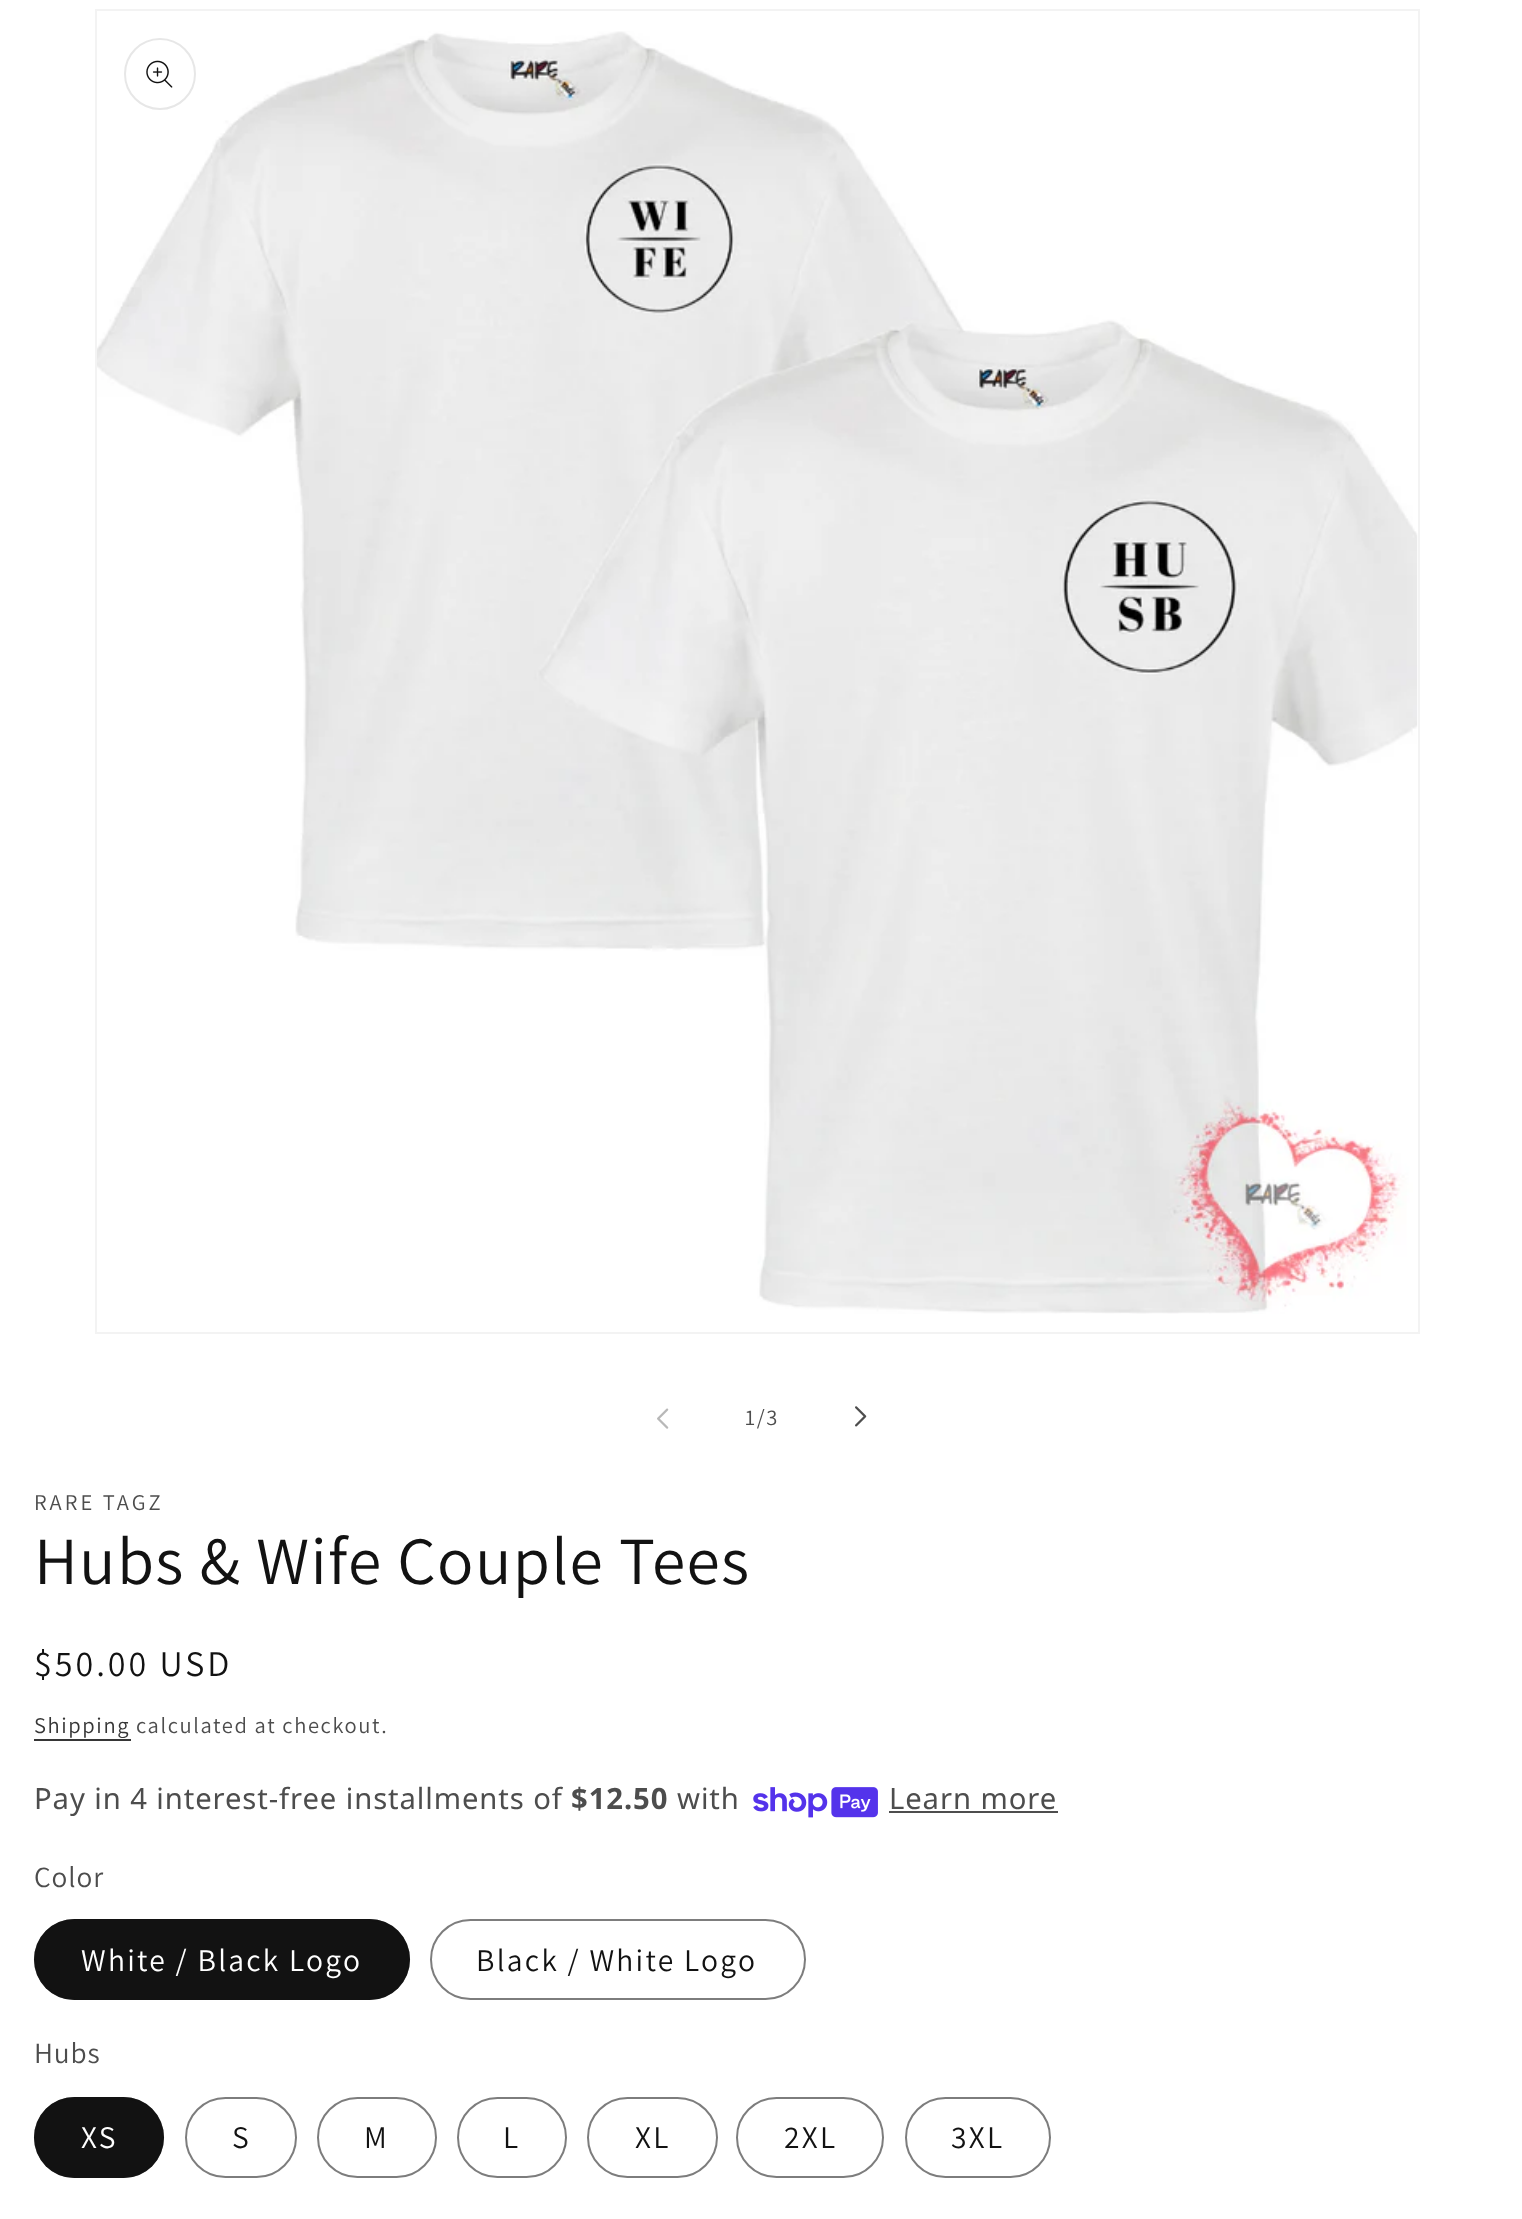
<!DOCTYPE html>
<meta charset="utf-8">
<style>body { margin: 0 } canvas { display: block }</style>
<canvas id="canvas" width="1522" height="2219"></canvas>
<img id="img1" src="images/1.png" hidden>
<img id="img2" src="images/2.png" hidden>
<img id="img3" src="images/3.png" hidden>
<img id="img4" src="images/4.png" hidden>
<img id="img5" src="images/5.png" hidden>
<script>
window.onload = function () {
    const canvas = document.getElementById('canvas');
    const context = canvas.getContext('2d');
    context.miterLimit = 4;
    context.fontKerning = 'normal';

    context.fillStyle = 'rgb(255, 255, 255)';
    context.fillRect(0, 0, 1522, 2219);
    context.strokeStyle = 'rgb(243, 243, 243)';
    context.lineWidth = 2;
    context.strokeRect(96, 10, 1323, 1323);
    context.drawImage(document.getElementById('img1'), 97, 31, 1321, 1283);
    context.beginPath();
    context.arc(160, 74, 35, 0, 2 * Math.PI);
    context.strokeStyle = 'rgb(231, 231, 231)';
    context.stroke();
    context.drawImage(document.getElementById('img2'), 146, 60, 27, 28);
    context.drawImage(document.getElementById('img3'), 657, 1408, 12, 21);
    context.drawImage(document.getElementById('img4'), 855, 1406, 12, 21);
    context.fillStyle = 'rgb(54, 54, 54)';
    context.fillRect(34, 1739, 97, 2);
    context.drawImage(document.getElementById('img5'), 753, 1787, 125, 31);
    context.fillStyle = 'rgb(77, 77, 77)';
    context.fillRect(889, 1811, 169, 2);
    context.fillStyle = 'rgb(18, 18, 18)';
    context.beginPath();
    context.roundRect(34, 1919, 376, 81, 40.5);
    context.fill();
    context.beginPath();
    context.roundRect(35, 1920, 374, 79, 39.5);
    context.strokeStyle = 'rgba(18, 18, 18, 0.55)';
    context.stroke();
    context.beginPath();
    context.roundRect(431, 1920, 374, 79, 39.5);
    context.strokeStyle = 'rgb(125, 125, 125)';
    context.stroke();
    context.beginPath();
    context.roundRect(34, 2097, 130, 81, 40.5);
    context.fill();
    context.beginPath();
    context.roundRect(35, 2098, 128, 79, 39.5);
    context.strokeStyle = 'rgba(18, 18, 18, 0.55)';
    context.stroke();
    context.beginPath();
    context.roundRect(186, 2098, 110, 79, 39.5);
    context.strokeStyle = 'rgb(125, 125, 125)';
    context.stroke();
    context.beginPath();
    context.roundRect(318, 2098, 118, 79, 39.5);
    context.stroke();
    context.beginPath();
    context.roundRect(458, 2098, 108, 79, 39.5);
    context.stroke();
    context.beginPath();
    context.roundRect(588, 2098, 129, 79, 39.5);
    context.stroke();
    context.beginPath();
    context.roundRect(737, 2098, 146, 79, 39.5);
    context.stroke();
    context.beginPath();
    context.roundRect(906, 2098, 144, 79, 39.5);
    context.stroke();
    context.letterSpacing = '1.6px';
    context.font = '22.5px Assistant';
    context.fillStyle = 'rgb(77, 77, 77)';
    context.fillText('1/3', 745, 1425);
    context.letterSpacing = '3px';
    context.fillText('RARE TAGZ', 34, 1510);
    context.letterSpacing = '1.35px';
    context.font = '67.5px Assistant';
    context.fillStyle = 'rgb(18, 18, 18)';
    context.fillText('Hubs & Wife Couple Tees', 34, 1584);
    context.letterSpacing = '3px';
    context.font = '36px Assistant';
    context.fillText('$50.00 USD', 34, 1676);
    context.letterSpacing = '1.6px';
    context.font = '22.5px Assistant';
    context.fillStyle = 'rgb(54, 54, 54)';
    context.fillText('Shipping', 34, 1733);
    context.fillStyle = 'rgb(77, 77, 77)';
    context.fillText('calculated at checkout.', 136, 1733);
    context.letterSpacing = '0.9px';
    context.font = '29.25px Noto Sans';
    context.fillText('Pay in 4 interest-free installments of', 34, 1809);
    context.font = 'bold 29.25px Noto Sans';
    context.fillText('$12.50', 571, 1809);
    context.font = '29.25px Noto Sans';
    context.fillText('with', 677, 1809);
    context.fillText('Learn more', 889, 1809);
    context.font = '29.25px Assistant';
    context.fillText('Color', 34, 1887);
    context.letterSpacing = '2.25px';
    context.font = '31.5px Assistant';
    context.fillStyle = 'rgb(255, 255, 255)';
    context.fillText('White / Black Logo', 81, 1971);
    context.fillStyle = 'rgb(18, 18, 18)';
    context.fillText('Black / White Logo', 476, 1971);
    context.letterSpacing = '0.9px';
    context.font = '29.25px Assistant';
    context.fillStyle = 'rgb(77, 77, 77)';
    context.fillText('Hubs', 34, 2063);
    context.letterSpacing = '2.25px';
    context.font = '31.5px Assistant';
    context.fillStyle = 'rgb(255, 255, 255)';
    context.fillText('XS', 81, 2148);
    context.fillStyle = 'rgb(18, 18, 18)';
    context.fillText('S', 232, 2148);
    context.fillText('M', 364, 2148);
    context.fillText('L', 503, 2148);
    context.fillText('XL', 635, 2148);
    context.fillText('2XL', 784, 2148);
    context.fillText('3XL', 951, 2148);
};
</script>
